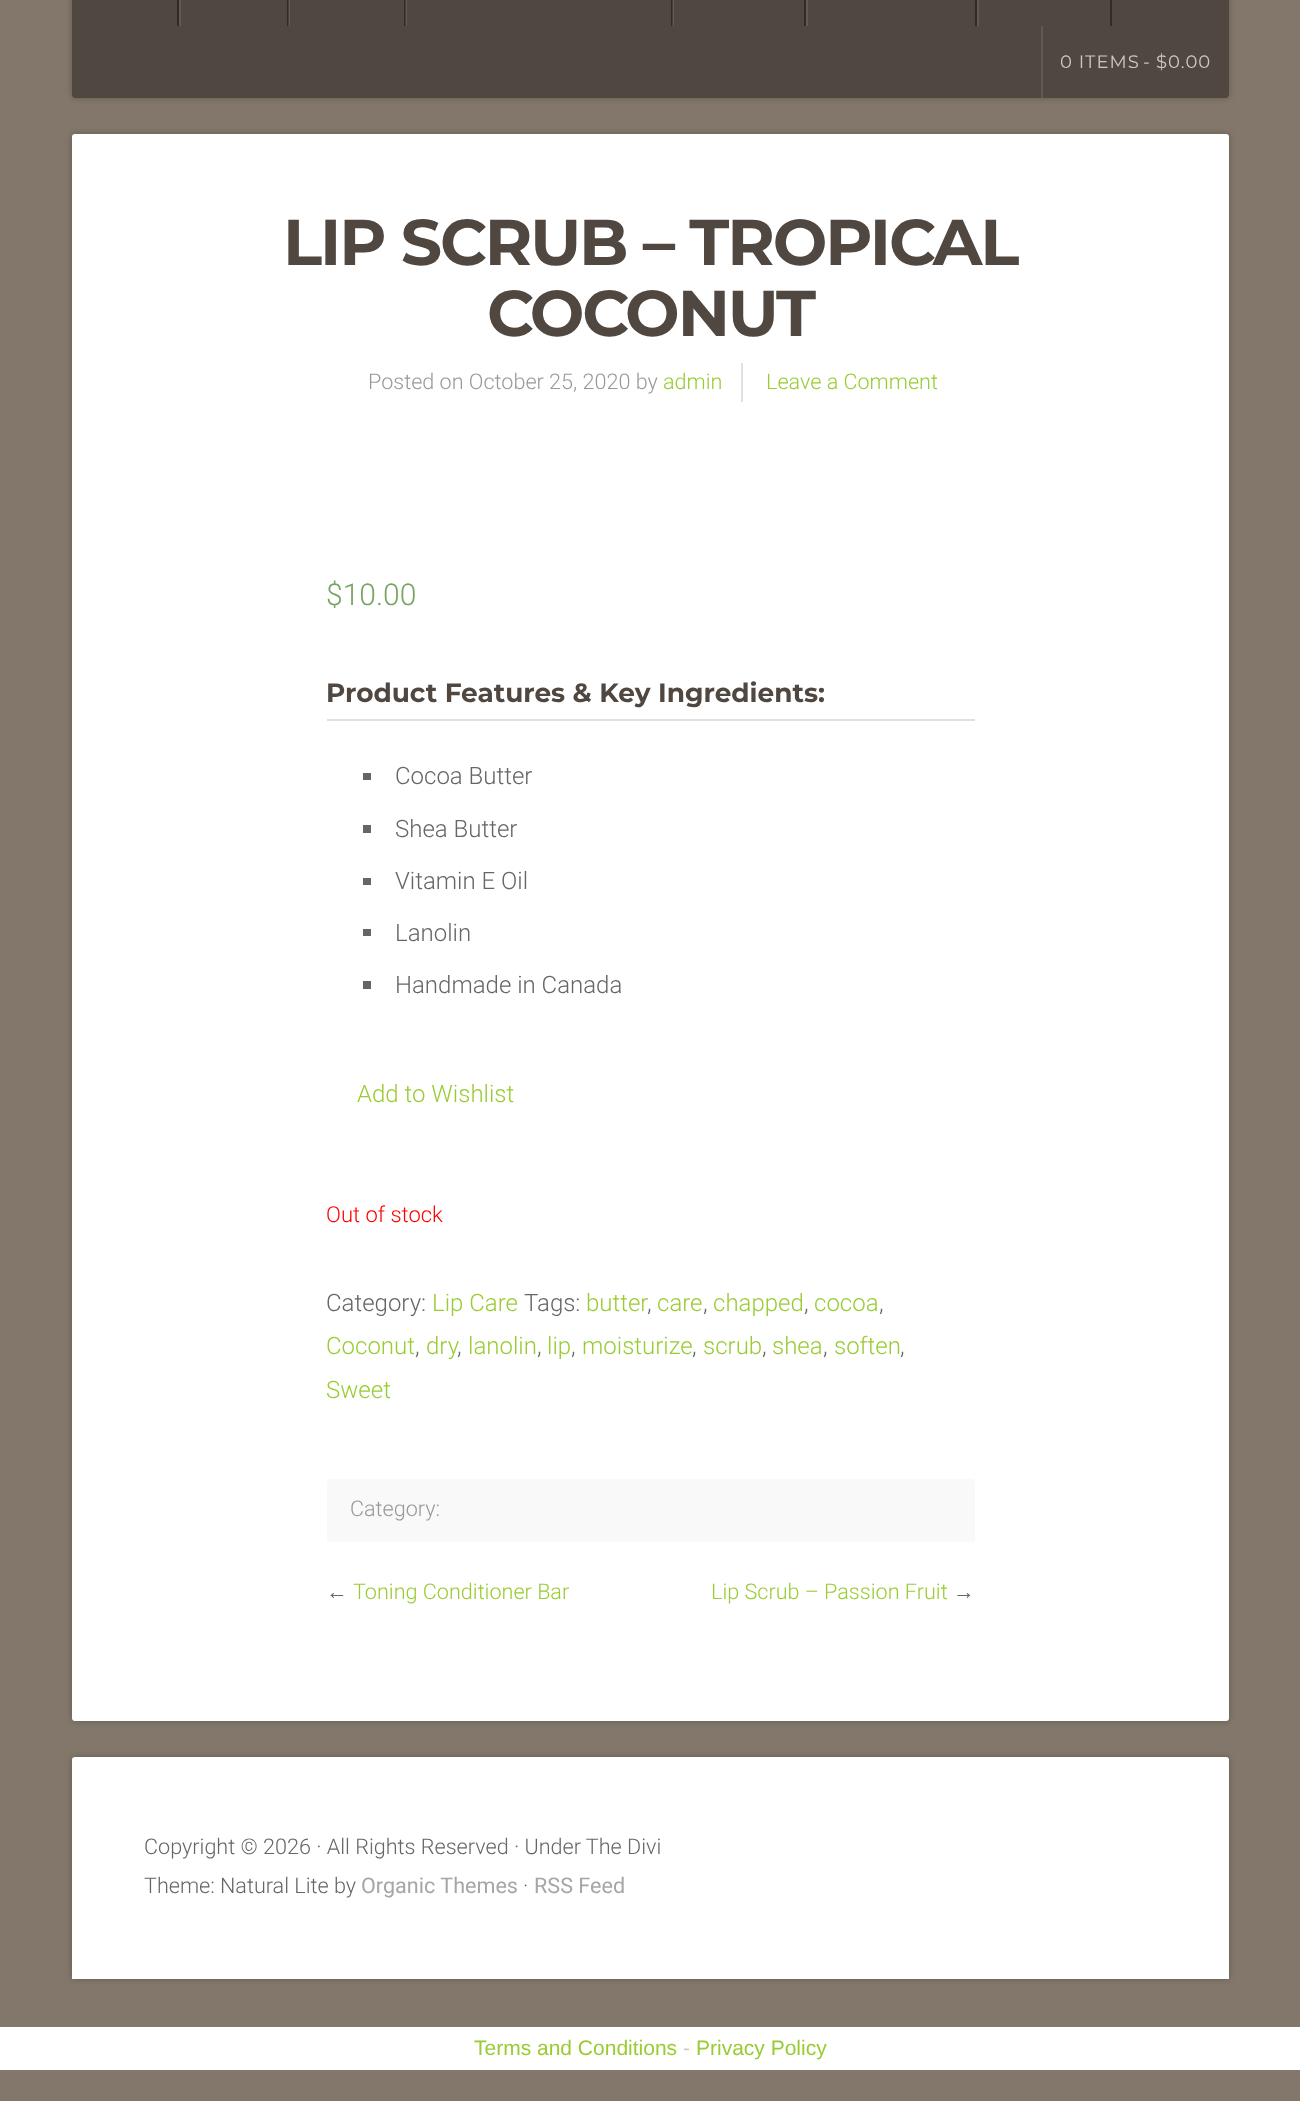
<!DOCTYPE html>
<meta charset="utf-8">
<style>body { margin: 0 } canvas { display: block }</style>
<canvas id="canvas" width="1300" height="2101"></canvas>
<script>
window.onload = function () {
    const canvas = document.getElementById('canvas');
    const context = canvas.getContext('2d');
    context.miterLimit = 4;
    context.fontKerning = 'normal';

    context.fillStyle = 'rgb(130, 119, 106)';
    context.fillRect(0, 0, 1300, 2101);
    context.fillStyle = 'rgba(0, 0, 0, 0.24)';
    context.filter = 'blur(3px)';
    context.beginPath();
    context.roundRect(72, -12, 1157, 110, 3);
    context.fill();
    context.filter = 'none';
    context.fillStyle = 'rgb(80, 71, 65)';
    context.beginPath();
    context.moveTo(72, -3);
    context.lineTo(1229, -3);
    context.lineTo(1229, 95);
    context.bezierCurveTo(1229, 96.5, 1227.5, 98, 1226, 98);
    context.lineTo(75, 98);
    context.bezierCurveTo(73.5, 98, 72, 96.5, 72, 95);
    context.closePath();
    context.fill();
    context.fillStyle = 'rgb(98, 89, 84)';
    context.fillRect(673, 0, 1, 26);
    context.fillRect(406, 0, 1, 26);
    context.fillRect(289, 0, 1, 26);
    context.fillStyle = 'rgb(48, 43, 39)';
    context.fillRect(177, 0, 2, 26);
    context.fillRect(287, 0, 1, 26);
    context.fillStyle = 'rgb(69, 64, 61)';
    context.fillRect(288, 0, 1, 26);
    context.fillStyle = 'rgb(98, 89, 84)';
    context.fillRect(179, 0, 2, 26);
    context.fillStyle = 'rgb(48, 43, 39)';
    context.fillRect(404, 0, 1, 26);
    context.fillStyle = 'rgb(69, 64, 61)';
    context.fillRect(405, 0, 1, 26);
    context.fillStyle = 'rgb(48, 43, 39)';
    context.fillRect(671, 0, 1, 26);
    context.fillStyle = 'rgb(69, 64, 61)';
    context.fillRect(672, 0, 1, 26);
    context.fillStyle = 'rgb(48, 43, 39)';
    context.fillRect(804, 0, 2, 26);
    context.fillRect(975, 0, 2, 26);
    context.fillStyle = 'rgb(98, 89, 84)';
    context.fillRect(806, 0, 2, 26);
    context.fillStyle = 'rgb(48, 43, 39)';
    context.fillRect(1110, 0, 2, 26);
    context.fillStyle = 'rgb(98, 89, 84)';
    context.fillRect(977, 0, 2, 26);
    context.fillRect(1041, 26, 2, 72);
    context.fillStyle = 'rgba(0, 0, 0, 0.24)';
    context.filter = 'blur(3px)';
    context.beginPath();
    context.roundRect(72, 134, 1157, 1587, 3);
    context.fill();
    context.filter = 'none';
    context.fillStyle = 'rgb(255, 255, 255)';
    context.beginPath();
    context.roundRect(72, 134, 1157, 1587, 3);
    context.fill();
    context.fillStyle = 'rgb(224, 224, 224)';
    context.fillRect(741, 363, 2, 39);
    context.fillRect(327, 719, 648, 2);
    context.fillStyle = 'rgb(102, 102, 102)';
    context.fillRect(363, 773, 8, 7);
    context.fillRect(363, 825, 8, 8);
    context.fillRect(363, 878, 8, 7);
    context.fillRect(363, 929, 8, 7);
    context.fillRect(363, 981, 8, 8);
    context.fillStyle = 'rgb(249, 249, 249)';
    context.beginPath();
    context.roundRect(327, 1479, 648, 63, 3);
    context.fill();
    context.fillStyle = 'rgba(0, 0, 0, 0.24)';
    context.filter = 'blur(3px)';
    context.beginPath();
    context.roundRect(72, 1757, 1157, 222, 3);
    context.fill();
    context.filter = 'none';
    context.fillStyle = 'rgb(255, 255, 255)';
    context.beginPath();
    context.roundRect(72, 1757, 1157, 222, [3, 3, 0, 0]);
    context.fill();
    context.fillRect(0, 2027, 1300, 43);
    context.letterSpacing = '1px';
    context.font = '18px Montserrat';
    context.fillStyle = 'rgb(203, 200, 198)';
    context.fillText('0 ITEMS', 1060, 68);
    context.fillText('-', 1143, 68);
    context.fillText('$0.00', 1156, 68);
    context.letterSpacing = '-2.1px';
    context.font = 'bold 64.75px Montserrat';
    context.fillStyle = 'rgb(80, 71, 65)';
    context.fillText('LIP SCRUB – TROPICAL', 283, 265);
    context.fillText('COCONUT', 487, 336);
    context.letterSpacing = '0px';
    context.font = '300 21.6px Roboto';
    context.fillStyle = 'rgb(153, 153, 153)';
    context.fillText('Posted on October 25, 2020 by', 368, 389);
    context.fillStyle = 'rgb(153, 204, 51)';
    context.fillText('admin', 663, 389);
    context.fillText('Leave a Comment', 766, 389);
    context.font = '300 30px Roboto';
    context.fillStyle = 'rgb(119, 164, 100)';
    context.fillText('$10.00', 326, 605);
    context.font = 'bold 26.4px Montserrat';
    context.fillStyle = 'rgb(80, 71, 65)';
    context.fillText('Product Features & Key Ingredients:', 326, 702);
    context.font = '300 24px Roboto';
    context.fillStyle = 'rgb(102, 102, 102)';
    context.fillText('Cocoa Butter', 395, 784);
    context.fillText('Shea Butter', 395, 837);
    context.fillText('Vitamin E Oil', 395, 889);
    context.fillText('Lanolin', 395, 941);
    context.fillText('Handmade in Canada', 395, 993);
    context.fillStyle = 'rgb(153, 204, 51)';
    context.fillText('Add to Wishlist', 357, 1102);
    context.font = '300 22px Roboto';
    context.fillStyle = 'rgb(255, 0, 0)';
    context.fillText('Out of stock', 326, 1222);
    context.font = '300 24px Roboto';
    context.fillStyle = 'rgb(102, 102, 102)';
    context.fillText('Category:', 326, 1311);
    context.fillStyle = 'rgb(153, 204, 51)';
    context.fillText('Lip Care', 432, 1311);
    context.fillStyle = 'rgb(102, 102, 102)';
    context.fillText('Tags:', 524, 1311);
    context.fillStyle = 'rgb(153, 204, 51)';
    context.fillText('butter', 586, 1311);
    context.fillStyle = 'rgb(102, 102, 102)';
    context.fillText(',', 647, 1311);
    context.fillStyle = 'rgb(153, 204, 51)';
    context.fillText('care', 657, 1311);
    context.fillStyle = 'rgb(102, 102, 102)';
    context.fillText(',', 703, 1311);
    context.fillStyle = 'rgb(153, 204, 51)';
    context.fillText('chapped', 713, 1311);
    context.fillStyle = 'rgb(102, 102, 102)';
    context.fillText(',', 804, 1311);
    context.fillStyle = 'rgb(153, 204, 51)';
    context.fillText('cocoa', 814, 1311);
    context.fillStyle = 'rgb(102, 102, 102)';
    context.fillText(',', 879, 1311);
    context.fillStyle = 'rgb(153, 204, 51)';
    context.fillText('Coconut', 326, 1354);
    context.fillStyle = 'rgb(102, 102, 102)';
    context.fillText(',', 415, 1354);
    context.fillStyle = 'rgb(153, 204, 51)';
    context.fillText('dry', 426, 1354);
    context.fillStyle = 'rgb(102, 102, 102)';
    context.fillText(',', 457, 1354);
    context.fillStyle = 'rgb(153, 204, 51)';
    context.fillText('lanolin', 468, 1354);
    context.fillStyle = 'rgb(102, 102, 102)';
    context.fillText(',', 537, 1354);
    context.fillStyle = 'rgb(153, 204, 51)';
    context.fillText('lip', 547, 1354);
    context.fillStyle = 'rgb(102, 102, 102)';
    context.fillText(',', 571, 1354);
    context.fillStyle = 'rgb(153, 204, 51)';
    context.fillText('moisturize', 582, 1354);
    context.fillStyle = 'rgb(102, 102, 102)';
    context.fillText(',', 692, 1354);
    context.fillStyle = 'rgb(153, 204, 51)';
    context.fillText('scrub', 703, 1354);
    context.fillStyle = 'rgb(102, 102, 102)';
    context.fillText(',', 762, 1354);
    context.fillStyle = 'rgb(153, 204, 51)';
    context.fillText('shea', 772, 1354);
    context.fillStyle = 'rgb(102, 102, 102)';
    context.fillText(',', 823, 1354);
    context.fillStyle = 'rgb(153, 204, 51)';
    context.fillText('soften', 834, 1354);
    context.fillStyle = 'rgb(102, 102, 102)';
    context.fillText(',', 900, 1354);
    context.fillStyle = 'rgb(153, 204, 51)';
    context.fillText('Sweet', 326, 1398);
    context.font = '300 21.6px Roboto';
    context.fillStyle = 'rgb(153, 153, 153)';
    context.fillText('Category:', 350, 1516);
    context.font = '21.6px Liberation Sans';
    context.fillStyle = 'rgb(102, 102, 102)';
    context.fillText('←', 326, 1599);
    context.font = '300 21.6px Roboto';
    context.fillStyle = 'rgb(153, 204, 51)';
    context.fillText('Toning Conditioner Bar', 353, 1599);
    context.fillText('Lip Scrub – Passion Fruit', 711, 1599);
    context.font = '21.6px Liberation Sans';
    context.fillStyle = 'rgb(102, 102, 102)';
    context.fillText('→', 953, 1599);
    context.font = '300 21.6px Roboto';
    context.fillText('Copyright © 2026 · All Rights Reserved · Under The Divi', 144, 1854);
    context.fillText('Theme: Natural Lite by', 144, 1893);
    context.font = '21.6px Roboto';
    context.fillStyle = 'rgb(166, 166, 166)';
    context.fillText('Organic Themes', 361, 1893);
    context.font = '300 21.6px Roboto';
    context.fillStyle = 'rgb(102, 102, 102)';
    context.fillText('·', 523, 1893);
    context.font = '21.6px Roboto';
    context.fillStyle = 'rgb(166, 166, 166)';
    context.fillText('RSS Feed', 534, 1893);
    context.font = '21px Liberation Sans';
    context.fillStyle = 'rgb(153, 204, 51)';
    context.fillText('Terms and Conditions', 474, 2055);
    context.fillStyle = 'rgb(204, 204, 204)';
    context.fillText('-', 683, 2055);
    context.fillStyle = 'rgb(153, 204, 51)';
    context.fillText('Privacy Policy', 696, 2055);
};
</script>
